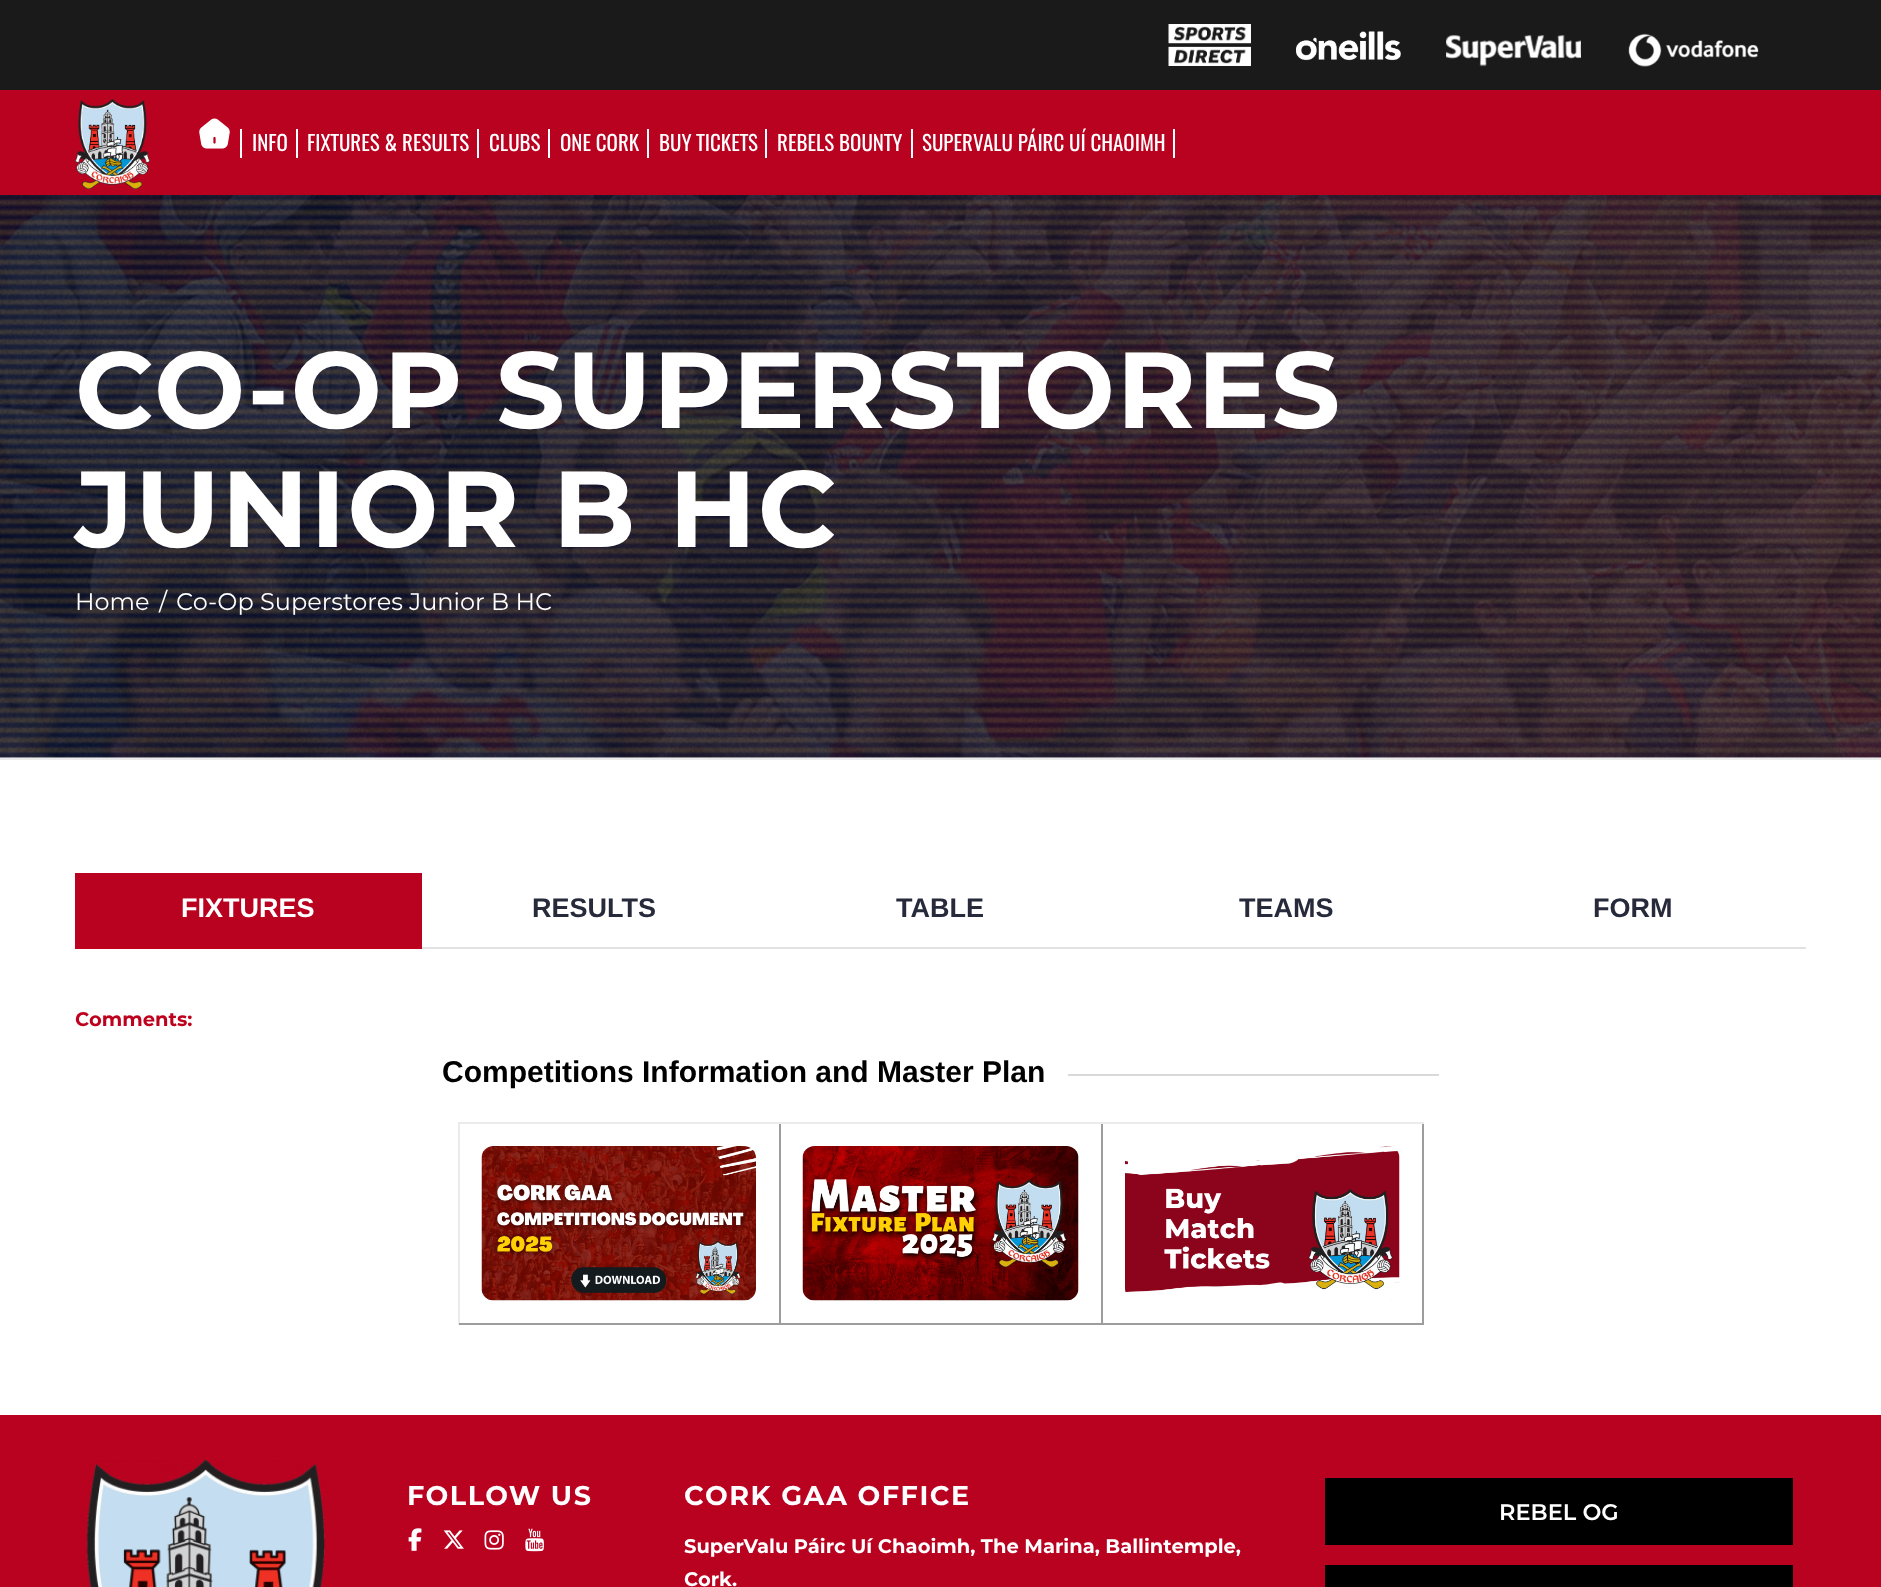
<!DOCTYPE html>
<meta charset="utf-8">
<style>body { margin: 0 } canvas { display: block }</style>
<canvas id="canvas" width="1881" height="1587"></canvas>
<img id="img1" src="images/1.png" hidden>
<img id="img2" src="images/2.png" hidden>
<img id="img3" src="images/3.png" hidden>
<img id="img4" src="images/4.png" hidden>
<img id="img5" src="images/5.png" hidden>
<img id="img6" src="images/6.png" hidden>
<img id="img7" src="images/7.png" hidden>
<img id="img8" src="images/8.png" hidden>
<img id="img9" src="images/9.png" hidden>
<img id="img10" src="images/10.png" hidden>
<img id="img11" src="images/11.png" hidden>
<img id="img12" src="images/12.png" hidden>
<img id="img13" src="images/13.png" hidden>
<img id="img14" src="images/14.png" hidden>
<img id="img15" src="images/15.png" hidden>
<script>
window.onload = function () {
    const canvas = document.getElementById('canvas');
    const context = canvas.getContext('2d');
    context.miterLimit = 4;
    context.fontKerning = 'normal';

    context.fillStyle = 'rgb(255, 255, 255)';
    context.fillRect(0, 0, 1881, 1587);
    context.fillStyle = 'rgb(185, 1, 32)';
    context.fillRect(0, 90, 1881, 105);
    context.fillStyle = 'rgb(26, 26, 26)';
    context.fillRect(0, 0, 1881, 90);
    context.drawImage(document.getElementById('img1'), 1168, 24, 83, 42);
    context.drawImage(document.getElementById('img2'), 1296, 31, 105, 30);
    context.drawImage(document.getElementById('img3'), 1446, 35, 135, 32);
    context.drawImage(document.getElementById('img4'), 1628, 33, 131, 34);
    context.drawImage(document.getElementById('img5'), 75, 99, 75, 90);
    context.fillStyle = 'rgb(255, 255, 255)';
    context.fillRect(240, 129, 2, 29);
    context.drawImage(document.getElementById('img6'), 199, 118, 31, 31);
    context.fillRect(296, 129, 2, 29);
    context.fillRect(477, 129, 2, 29);
    context.fillRect(548, 129, 2, 29);
    context.fillRect(647, 129, 2, 29);
    context.fillRect(765, 129, 2, 29);
    context.fillRect(911, 129, 2, 29);
    context.fillRect(1173, 129, 2, 29);
    context.drawImage(document.getElementById('img7'), 0, 195, 1881, 563);
    context.fillStyle = 'rgb(235, 235, 235)';
    context.fillRect(0, 758, 1881, 2);
    context.fillStyle = 'rgb(185, 1, 32)';
    context.fillRect(75, 873, 347, 74);
    context.fillStyle = 'rgb(190, 1, 29)';
    context.fillRect(75, 947, 347, 2);
    context.fillStyle = 'rgb(226, 226, 226)';
    context.fillRect(422, 947, 1384, 2);
    context.fillStyle = 'rgb(217, 217, 217)';
    context.fillRect(1068, 1074, 371, 2);
    context.fillStyle = 'rgb(235, 235, 235)';
    context.fillRect(458, 1122, 966, 2);
    context.fillRect(458, 1122, 2, 203);
    context.fillStyle = 'rgb(157, 157, 157)';
    context.fillRect(779, 1124, 2, 201);
    context.fillRect(459, 1323, 321, 2);
    context.drawImage(document.getElementById('img8'), 481, 1146, 275, 155);
    context.fillRect(1101, 1124, 2, 201);
    context.fillRect(780, 1323, 323, 2);
    context.drawImage(document.getElementById('img9'), 802, 1146, 277, 155);
    context.fillRect(1422, 1124, 2, 201);
    context.fillRect(1103, 1323, 321, 2);
    context.drawImage(document.getElementById('img10'), 1125, 1146, 275, 155);
    context.fillStyle = 'rgb(185, 1, 32)';
    context.fillRect(0, 1415, 1881, 172);
    context.drawImage(document.getElementById('img11'), 86, 1459, 240, 128);
    context.drawImage(document.getElementById('img12'), 408, 1528, 14, 23);
    context.drawImage(document.getElementById('img13'), 443, 1530, 21, 19);
    context.drawImage(document.getElementById('img14'), 484, 1530, 20, 20);
    context.drawImage(document.getElementById('img15'), 525, 1528, 19, 24);
    context.fillStyle = 'rgb(0, 0, 0)';
    context.fillRect(1325, 1478, 468, 67);
    context.fillRect(1325, 1565, 468, 22);
    context.font = '21px Oswald';
    context.fillStyle = 'rgb(255, 255, 255)';
    context.fillText('INFO', 252, 151);
    context.fillText('FIXTURES & RESULTS', 307, 151);
    context.fillText('CLUBS', 489, 151);
    context.fillText('ONE CORK', 560, 151);
    context.fillText('BUY TICKETS', 659, 151);
    context.fillText('REBELS BOUNTY', 777, 151);
    context.fillText('SUPERVALU PÁIRC UÍ CHAOIMH', 922, 151);
    context.letterSpacing = '1.5px';
    context.font = 'bold 108px Montserrat';
    context.fillText('CO-OP SUPERSTORES', 75, 428);
    context.fillText('JUNIOR B HC', 75, 547);
    context.letterSpacing = '0px';
    context.font = '24px Montserrat';
    context.fillText('Home', 75, 610);
    context.fillText('/', 159, 610);
    context.fillText('Co-Op Superstores Junior B HC', 176, 610);
    context.font = 'bold 27px Liberation Sans';
    context.fillText('FIXTURES', 181, 917);
    context.fillStyle = 'rgb(39, 42, 59)';
    context.fillText('RESULTS', 532, 917);
    context.fillText('TABLE', 896, 917);
    context.fillText('TEAMS', 1239, 917);
    context.fillText('FORM', 1593, 917);
    context.font = 'bold 19.5px Montserrat';
    context.fillStyle = 'rgb(190, 1, 29)';
    context.fillText('Comments:', 75, 1026);
    context.font = 'bold 30px Liberation Sans';
    context.fillStyle = 'rgb(0, 0, 0)';
    context.fillText('Competitions Information and Master Plan', 442, 1082);
    context.letterSpacing = '1.5px';
    context.font = 'bold 27px Montserrat';
    context.fillStyle = 'rgb(255, 255, 255)';
    context.fillText('FOLLOW US', 407, 1505);
    context.fillText('CORK GAA OFFICE', 684, 1505);
    context.letterSpacing = '0px';
    context.font = 'bold 19.5px Montserrat';
    context.fillText('SuperValu Páirc Uí Chaoimh, The Marina, Ballintemple,', 684, 1553);
    context.fillText('Cork.', 684, 1586);
    context.font = '600 22.5px Montserrat';
    context.fillText('REBEL OG', 1499, 1520);
};
</script>
